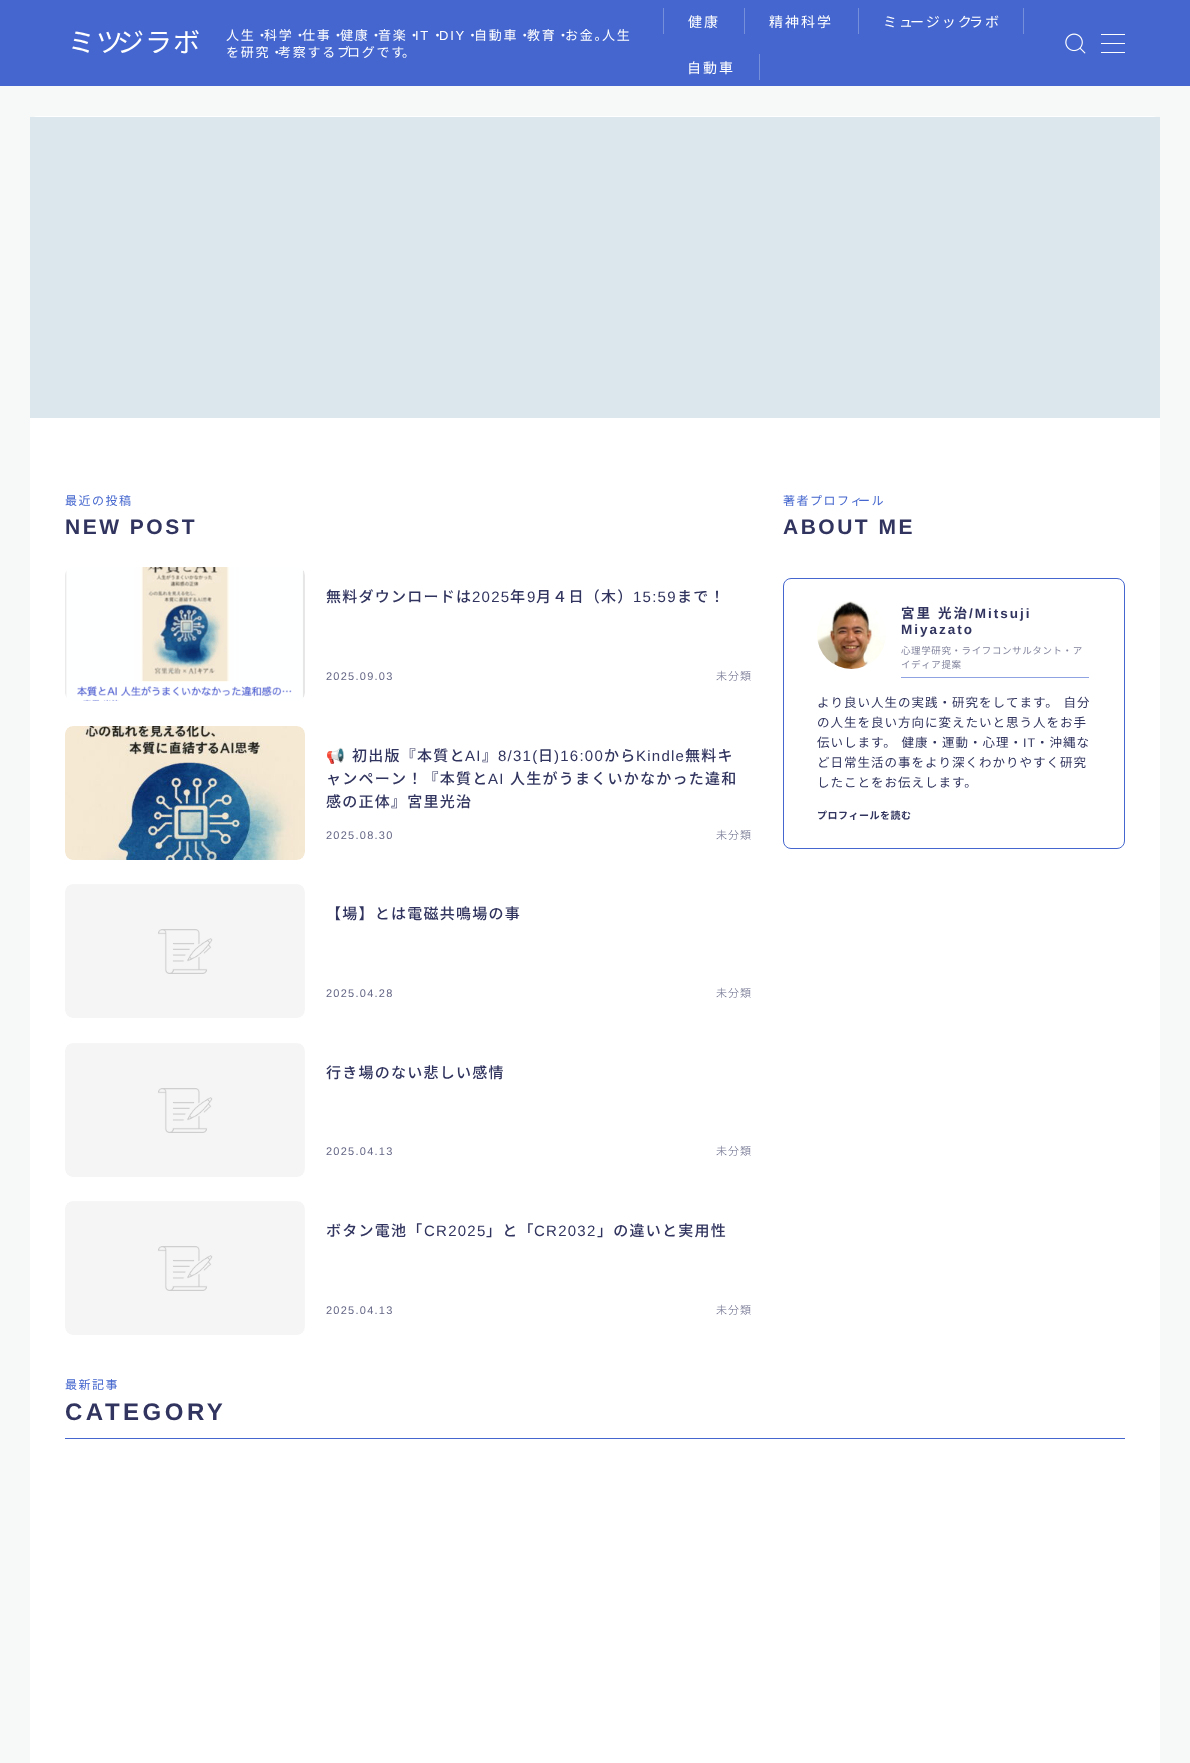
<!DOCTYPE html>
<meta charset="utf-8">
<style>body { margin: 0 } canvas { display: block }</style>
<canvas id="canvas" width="1190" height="1763"></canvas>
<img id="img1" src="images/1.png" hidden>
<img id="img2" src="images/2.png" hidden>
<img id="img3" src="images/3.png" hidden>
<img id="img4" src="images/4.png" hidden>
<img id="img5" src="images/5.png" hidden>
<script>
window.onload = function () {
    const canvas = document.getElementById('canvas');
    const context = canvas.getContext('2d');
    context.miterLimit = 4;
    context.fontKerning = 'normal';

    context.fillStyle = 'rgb(247, 249, 249)';
    context.fillRect(0, 0, 1190, 1763);
    context.fillStyle = 'rgb(68, 102, 206)';
    context.fillRect(0, 0, 1190, 86);
    context.fillStyle = 'rgb(118, 143, 219)';
    context.fillRect(744, 8, 1, 26);
    context.fillRect(663, 8, 1, 26);
    context.fillRect(858, 8, 1, 26);
    context.fillRect(1023, 8, 1, 26);
    context.fillRect(759, 54, 1, 26);
    context.drawImage(document.getElementById('img1'), 1065, 33, 21, 21);
    context.fillStyle = 'rgb(255, 255, 255)';
    context.fillRect(1101, 34, 24, 1);
    context.fillRect(1101, 43, 24, 1);
    context.fillRect(1101, 52, 24, 1);
    context.beginPath();
    context.roundRect(30, 116, 1130, 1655, 8);
    context.fill();
    context.fillStyle = 'rgb(220, 231, 237)';
    context.fillRect(30, 117, 1130, 301);
    context.drawImage(document.getElementById('img2'), 65, 567, 240, 134);
    context.drawImage(document.getElementById('img3'), 65, 726, 240, 134);
    context.drawImage(document.getElementById('img4'), 65, 884, 240, 134);
    context.drawImage(document.getElementById('img4'), 65, 1043, 240, 134);
    context.drawImage(document.getElementById('img4'), 65, 1201, 240, 134);
    context.beginPath();
    context.roundRect(783.5, 578.5, 341, 270, 7.5);
    context.strokeStyle = 'rgb(68, 102, 206)';
    context.stroke();
    context.drawImage(document.getElementById('img5'), 817, 601, 69, 68);
    context.fillStyle = 'rgb(143, 163, 226)';
    context.fillRect(901, 677, 188, 1);
    context.fillStyle = 'rgb(68, 102, 206)';
    context.fillRect(65, 1438, 1060, 1);
    context.letterSpacing = '1px';
    context.font = '27px Noto Sans CJK JP';
    context.fillStyle = 'rgb(255, 255, 255)';
    context.fillText('ミツ', 68, 52);
    context.fillText('ジラボ', 117, 52);
    context.letterSpacing = '1.75px';
    context.font = '13px Noto Sans CJK JP';
    context.fillText('人生・', 226, 40);
    context.fillText('科学・', 264, 40);
    context.fillText('仕事・', 302, 40);
    context.fillText('健康・', 340, 40);
    context.fillText('音楽・', 378, 40);
    context.font = '13px Liberation Sans';
    context.fillText('IT', 415, 40);
    context.font = '13px Noto Sans CJK JP';
    context.fillText('・', 431, 40);
    context.font = '13px Liberation Sans';
    context.fillText('DIY', 439, 40);
    context.font = '13px Noto Sans CJK JP';
    context.fillText('・', 466, 40);
    context.fillText('自動車・', 474, 40);
    context.fillText('教育・', 527, 40);
    context.fillText('お金。', 565, 40);
    context.fillText('人生', 602, 40);
    context.fillText('を研究・', 226, 57);
    context.fillText('考察するブ', 278, 57);
    context.fillText('ログです', 347, 57);
    context.fillText('。', 402, 57);
    context.letterSpacing = '2px';
    context.font = '14px Noto Sans CJK JP';
    context.fillText('健康', 688, 27);
    context.fillText('精神科学', 769, 27);
    context.fillText('ミュ', 883, 27);
    context.fillText('ージック', 910, 27);
    context.fillText('ラボ', 969, 27);
    context.fillText('自動車', 687, 73);
    context.letterSpacing = '1.5px';
    context.font = '12px Noto Sans CJK JP';
    context.fillStyle = 'rgb(68, 102, 206)';
    context.fillText('最近の投稿', 65, 505);
    context.letterSpacing = '2.5px';
    context.font = 'bold 21px Liberation Sans';
    context.fillStyle = 'rgb(49, 52, 94)';
    context.fillText('NEW POST', 65, 534);
    context.letterSpacing = '1.25px';
    context.font = '500 15px Noto Sans CJK JP';
    context.fillText('無料ダウンロードは', 326, 602);
    context.font = '15px Liberation Sans';
    context.fillText('2025', 472, 602);
    context.font = '500 15px Noto Sans CJK JP';
    context.fillText('年', 510, 602);
    context.font = '15px Liberation Sans';
    context.fillText('9', 527, 602);
    context.font = '500 15px Noto Sans CJK JP';
    context.fillText('月４日（木）', 536, 602);
    context.font = '15px Liberation Sans';
    context.fillText('15:59', 633, 602);
    context.font = '500 15px Noto Sans CJK JP';
    context.fillText('まで！', 677, 602);
    context.font = '11px Liberation Sans';
    context.fillStyle = 'rgb(101, 103, 134)';
    context.fillText('2025.09.03', 326, 680);
    context.letterSpacing = '1px';
    context.font = '300 11px Noto Sans CJK JP';
    context.fillText('未分類', 716, 680);
    context.letterSpacing = '1.25px';
    context.font = '15px Noto Color Emoji';
    context.fillStyle = 'rgb(49, 52, 94)';
    context.fillText('📢', 326, 761);
    context.font = '500 15px Noto Sans CJK JP';
    context.fillText('初出版『本質と', 352, 761);
    context.font = '15px Liberation Sans';
    context.fillText('AI', 465, 761);
    context.font = '500 15px Noto Sans CJK JP';
    context.fillText('』', 482, 761);
    context.font = '15px Liberation Sans';
    context.fillText('8/31(', 498, 761);
    context.font = '500 15px Noto Sans CJK JP';
    context.fillText('日', 538, 761);
    context.font = '15px Liberation Sans';
    context.fillText(')16:00', 554, 761);
    context.font = '500 15px Noto Sans CJK JP';
    context.fillText('から', 604, 761);
    context.font = '15px Liberation Sans';
    context.fillText('Kindle', 636, 761);
    context.font = '500 15px Noto Sans CJK JP';
    context.fillText('無料キ', 685, 761);
    context.fillText('ャンペーン！『本質と', 326, 784);
    context.font = '15px Liberation Sans';
    context.fillText('AI', 488, 784);
    context.font = '500 15px Noto Sans CJK JP';
    context.fillText('人生がうまくいかなかった違和', 510, 784);
    context.fillText('感の正体』宮里光治', 326, 807);
    context.font = '11px Liberation Sans';
    context.fillStyle = 'rgb(101, 103, 134)';
    context.fillText('2025.08.30', 326, 839);
    context.letterSpacing = '1px';
    context.font = '300 11px Noto Sans CJK JP';
    context.fillText('未分類', 716, 839);
    context.letterSpacing = '1.25px';
    context.font = '500 15px Noto Sans CJK JP';
    context.fillStyle = 'rgb(49, 52, 94)';
    context.fillText('【場】とは電磁共鳴場の事', 326, 919);
    context.font = '11px Liberation Sans';
    context.fillStyle = 'rgb(101, 103, 134)';
    context.fillText('2025.04.28', 326, 997);
    context.letterSpacing = '1px';
    context.font = '300 11px Noto Sans CJK JP';
    context.fillText('未分類', 716, 997);
    context.letterSpacing = '1.25px';
    context.font = '500 15px Noto Sans CJK JP';
    context.fillStyle = 'rgb(49, 52, 94)';
    context.fillText('行き場のない悲しい感情', 326, 1078);
    context.font = '11px Liberation Sans';
    context.fillStyle = 'rgb(101, 103, 134)';
    context.fillText('2025.04.13', 326, 1155);
    context.letterSpacing = '1px';
    context.font = '300 11px Noto Sans CJK JP';
    context.fillText('未分類', 716, 1155);
    context.letterSpacing = '1.25px';
    context.font = '500 15px Noto Sans CJK JP';
    context.fillStyle = 'rgb(49, 52, 94)';
    context.fillText('ボタン電池「', 326, 1236);
    context.font = '15px Liberation Sans';
    context.fillText('CR2025', 424, 1236);
    context.font = '500 15px Noto Sans CJK JP';
    context.fillText('」と「', 486, 1236);
    context.font = '15px Liberation Sans';
    context.fillText('CR2032', 534, 1236);
    context.font = '500 15px Noto Sans CJK JP';
    context.fillText('」の違いと実用性', 597, 1236);
    context.font = '11px Liberation Sans';
    context.fillStyle = 'rgb(101, 103, 134)';
    context.fillText('2025.04.13', 326, 1314);
    context.letterSpacing = '1px';
    context.font = '300 11px Noto Sans CJK JP';
    context.fillText('未分類', 716, 1314);
    context.letterSpacing = '1.5px';
    context.font = '12px Noto Sans CJK JP';
    context.fillStyle = 'rgb(68, 102, 206)';
    context.fillText('著者プロフィ', 783, 505);
    context.fillText('ール', 858, 505);
    context.letterSpacing = '2.5px';
    context.font = 'bold 21px Liberation Sans';
    context.fillStyle = 'rgb(49, 52, 94)';
    context.fillText('ABOUT ME', 783, 534);
    context.letterSpacing = '2px';
    context.wordSpacing = '1px';
    context.font = 'bold 13.5px Noto Sans CJK JP';
    context.fillText('宮里 光治', 901, 618);
    context.wordSpacing = '0px';
    context.font = 'bold 13.5px Liberation Sans';
    context.fillText('/Mitsuji', 969, 618);
    context.fillText('Miyazato', 901, 634);
    context.letterSpacing = '0.6px';
    context.font = '9.5px Noto Sans CJK JP';
    context.fillStyle = 'rgb(131, 133, 158)';
    context.fillText('心理学研究・ライフコンサルタント・ア', 901, 654);
    context.fillText('イディア提案', 901, 668);
    context.letterSpacing = '1px';
    context.wordSpacing = '1px';
    context.font = '12.5px Noto Sans CJK JP';
    context.fillStyle = 'rgb(49, 52, 94)';
    context.fillText('より良い人生の実践・研究をしてます。 自分', 817, 707);
    context.wordSpacing = '0px';
    context.fillText('の人生を良い方向に変えたいと思う人をお手', 817, 727);
    context.wordSpacing = '1px';
    context.fillText('伝いします。 健康・運動・心理・', 817, 747);
    context.wordSpacing = '0px';
    context.font = '12.5px Liberation Sans';
    context.fillText('IT', 1023, 747);
    context.font = '12.5px Noto Sans CJK JP';
    context.fillText('・沖縄な', 1036, 747);
    context.fillText('ど日常生活の事をより深くわかりやすく研究', 817, 767);
    context.fillText('したことをお伝えします。', 817, 787);
    context.letterSpacing = '0.5px';
    context.font = 'bold 10px Noto Sans CJK JP';
    context.fillText('プロフィールを読む', 817, 819);
    context.letterSpacing = '1.5px';
    context.font = '12px Noto Sans CJK JP';
    context.fillStyle = 'rgb(68, 102, 206)';
    context.fillText('最新記事', 65, 1389);
    context.letterSpacing = '3.5px';
    context.font = 'bold 24px Liberation Sans';
    context.fillStyle = 'rgb(49, 52, 94)';
    context.fillText('CATEGORY', 65, 1420);
};
</script>
